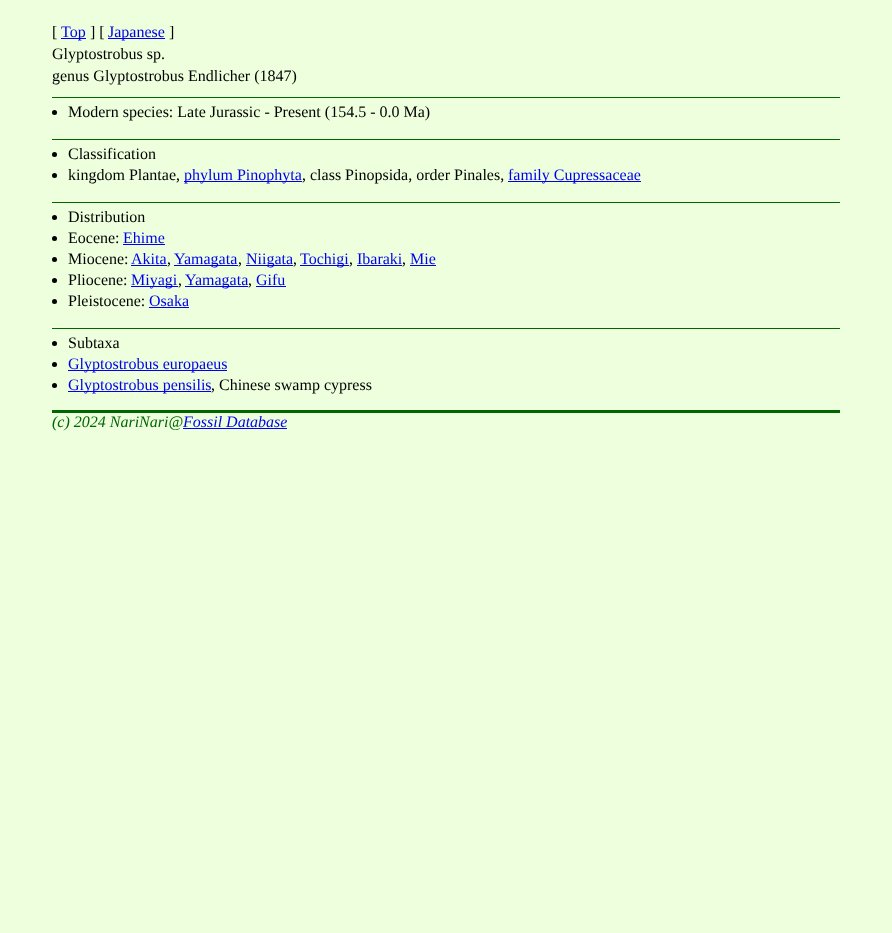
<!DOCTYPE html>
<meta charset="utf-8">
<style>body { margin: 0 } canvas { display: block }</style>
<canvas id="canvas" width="892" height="933"></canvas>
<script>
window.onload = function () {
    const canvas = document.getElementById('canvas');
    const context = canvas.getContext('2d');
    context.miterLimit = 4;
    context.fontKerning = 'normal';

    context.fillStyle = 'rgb(238, 255, 221)';
    context.fillRect(0, 0, 892, 933);
    context.fillStyle = 'rgb(0, 0, 238)';
    context.fillRect(61, 38, 25, 1);
    context.fillRect(108, 38, 57, 1);
    context.fillStyle = 'rgb(0, 102, 0)';
    context.fillRect(52, 97, 788, 1);
    context.fillStyle = 'rgb(0, 0, 0)';
    context.beginPath();
    context.arc(54.5, 112.5, 2.5, 0, 2 * Math.PI);
    context.fill();
    context.fillStyle = 'rgb(0, 102, 0)';
    context.fillRect(52, 139, 788, 1);
    context.fillStyle = 'rgb(0, 0, 0)';
    context.beginPath();
    context.arc(54.5, 154.5, 2.5, 0, 2 * Math.PI);
    context.fill();
    context.beginPath();
    context.arc(54.5, 175.5, 2.5, 0, 2 * Math.PI);
    context.fill();
    context.fillStyle = 'rgb(0, 0, 238)';
    context.fillRect(184, 181, 118, 1);
    context.fillRect(508, 181, 133, 1);
    context.fillStyle = 'rgb(0, 102, 0)';
    context.fillRect(52, 202, 788, 1);
    context.fillStyle = 'rgb(0, 0, 0)';
    context.beginPath();
    context.arc(54.5, 217.5, 2.5, 0, 2 * Math.PI);
    context.fill();
    context.beginPath();
    context.arc(54.5, 238.5, 2.5, 0, 2 * Math.PI);
    context.fill();
    context.fillStyle = 'rgb(0, 0, 238)';
    context.fillRect(123, 244, 42, 1);
    context.fillStyle = 'rgb(0, 0, 0)';
    context.beginPath();
    context.arc(54.5, 259.5, 2.5, 0, 2 * Math.PI);
    context.fill();
    context.fillStyle = 'rgb(0, 0, 238)';
    context.fillRect(131, 265, 36, 1);
    context.fillRect(174, 265, 64, 1);
    context.fillRect(246, 265, 47, 1);
    context.fillRect(300, 265, 49, 1);
    context.fillRect(357, 265, 45, 1);
    context.fillRect(410, 265, 26, 1);
    context.fillStyle = 'rgb(0, 0, 0)';
    context.beginPath();
    context.arc(54.5, 280.5, 2.5, 0, 2 * Math.PI);
    context.fill();
    context.fillStyle = 'rgb(0, 0, 238)';
    context.fillRect(131, 286, 47, 1);
    context.fillRect(185, 286, 63, 1);
    context.fillRect(256, 286, 30, 1);
    context.fillStyle = 'rgb(0, 0, 0)';
    context.beginPath();
    context.arc(54.5, 301.5, 2.5, 0, 2 * Math.PI);
    context.fill();
    context.fillStyle = 'rgb(0, 0, 238)';
    context.fillRect(149, 307, 40, 1);
    context.fillStyle = 'rgb(0, 102, 0)';
    context.fillRect(52, 328, 788, 1);
    context.fillStyle = 'rgb(0, 0, 0)';
    context.beginPath();
    context.arc(54.5, 343.5, 2.5, 0, 2 * Math.PI);
    context.fill();
    context.beginPath();
    context.arc(54.5, 364.5, 2.5, 0, 2 * Math.PI);
    context.fill();
    context.fillStyle = 'rgb(0, 0, 238)';
    context.fillRect(68, 370, 159, 1);
    context.fillStyle = 'rgb(0, 0, 0)';
    context.beginPath();
    context.arc(54.5, 385.5, 2.5, 0, 2 * Math.PI);
    context.fill();
    context.fillStyle = 'rgb(0, 0, 238)';
    context.fillRect(68, 391, 143, 1);
    context.fillStyle = 'rgb(0, 102, 0)';
    context.fillRect(52, 410, 788, 3);
    context.fillStyle = 'rgb(0, 0, 238)';
    context.fillRect(183, 428, 104, 1);
    context.font = '16px Liberation Serif';
    context.fillStyle = 'rgb(0, 0, 0)';
    context.fillText('[', 52, 37);
    context.fillStyle = 'rgb(0, 0, 238)';
    context.fillText('Top', 61, 37);
    context.fillStyle = 'rgb(0, 0, 0)';
    context.fillText('] [', 90, 37);
    context.fillStyle = 'rgb(0, 0, 238)';
    context.fillText('Japanese', 108, 37);
    context.fillStyle = 'rgb(0, 0, 0)';
    context.fillText(']', 169, 37);
    context.fillText('Glyptostrobus sp.', 52, 59);
    context.fillText('genus Glyptostrobus Endlicher (1847)', 52, 81);
    context.fillText('Modern species: Late Jurassic - Present (154.5 - 0.0 Ma)', 68, 117);
    context.fillText('Classification', 68, 159);
    context.fillText('kingdom Plantae,', 68, 180);
    context.fillStyle = 'rgb(0, 0, 238)';
    context.fillText('phylum Pinophyta', 184, 180);
    context.fillStyle = 'rgb(0, 0, 0)';
    context.fillText(', class Pinopsida, order Pinales,', 302, 180);
    context.fillStyle = 'rgb(0, 0, 238)';
    context.fillText('family Cupressaceae', 508, 180);
    context.fillStyle = 'rgb(0, 0, 0)';
    context.fillText('Distribution', 68, 222);
    context.fillText('Eocene:', 68, 243);
    context.fillStyle = 'rgb(0, 0, 238)';
    context.fillText('Ehime', 123, 243);
    context.fillStyle = 'rgb(0, 0, 0)';
    context.fillText('Miocene:', 68, 264);
    context.fillStyle = 'rgb(0, 0, 238)';
    context.fillText('Akita', 131, 264);
    context.fillText('Yamagata', 174, 264);
    context.fillText('Niigata', 246, 264);
    context.fillText('Tochigi', 300, 264);
    context.fillText('Ibaraki', 357, 264);
    context.fillText('Mie', 410, 264);
    context.fillStyle = 'rgb(0, 0, 0)';
    context.fillText(',', 167, 264);
    context.fillText(',', 238, 264);
    context.fillText(',', 293, 264);
    context.fillText(',', 349, 264);
    context.fillText(',', 402, 264);
    context.fillText('Pliocene:', 68, 285);
    context.fillStyle = 'rgb(0, 0, 238)';
    context.fillText('Miyagi', 131, 285);
    context.fillText('Yamagata', 185, 285);
    context.fillText('Gifu', 256, 285);
    context.fillStyle = 'rgb(0, 0, 0)';
    context.fillText(',', 178, 285);
    context.fillText(',', 248, 285);
    context.fillText('Pleistocene:', 68, 306);
    context.fillStyle = 'rgb(0, 0, 238)';
    context.fillText('Osaka', 149, 306);
    context.fillStyle = 'rgb(0, 0, 0)';
    context.fillText('Subtaxa', 68, 348);
    context.fillStyle = 'rgb(0, 0, 238)';
    context.fillText('Glyptostrobus europaeus', 68, 369);
    context.fillText('Glyptostrobus pensilis', 68, 390);
    context.fillStyle = 'rgb(0, 0, 0)';
    context.fillText(', Chinese swamp cypress', 211, 390);
    context.font = 'italic 16px Liberation Serif';
    context.fillStyle = 'rgb(0, 102, 0)';
    context.fillText('(c) 2024 NariNari@', 52, 427);
    context.fillStyle = 'rgb(0, 0, 238)';
    context.fillText('Fossil Database', 183, 427);
};
</script>
